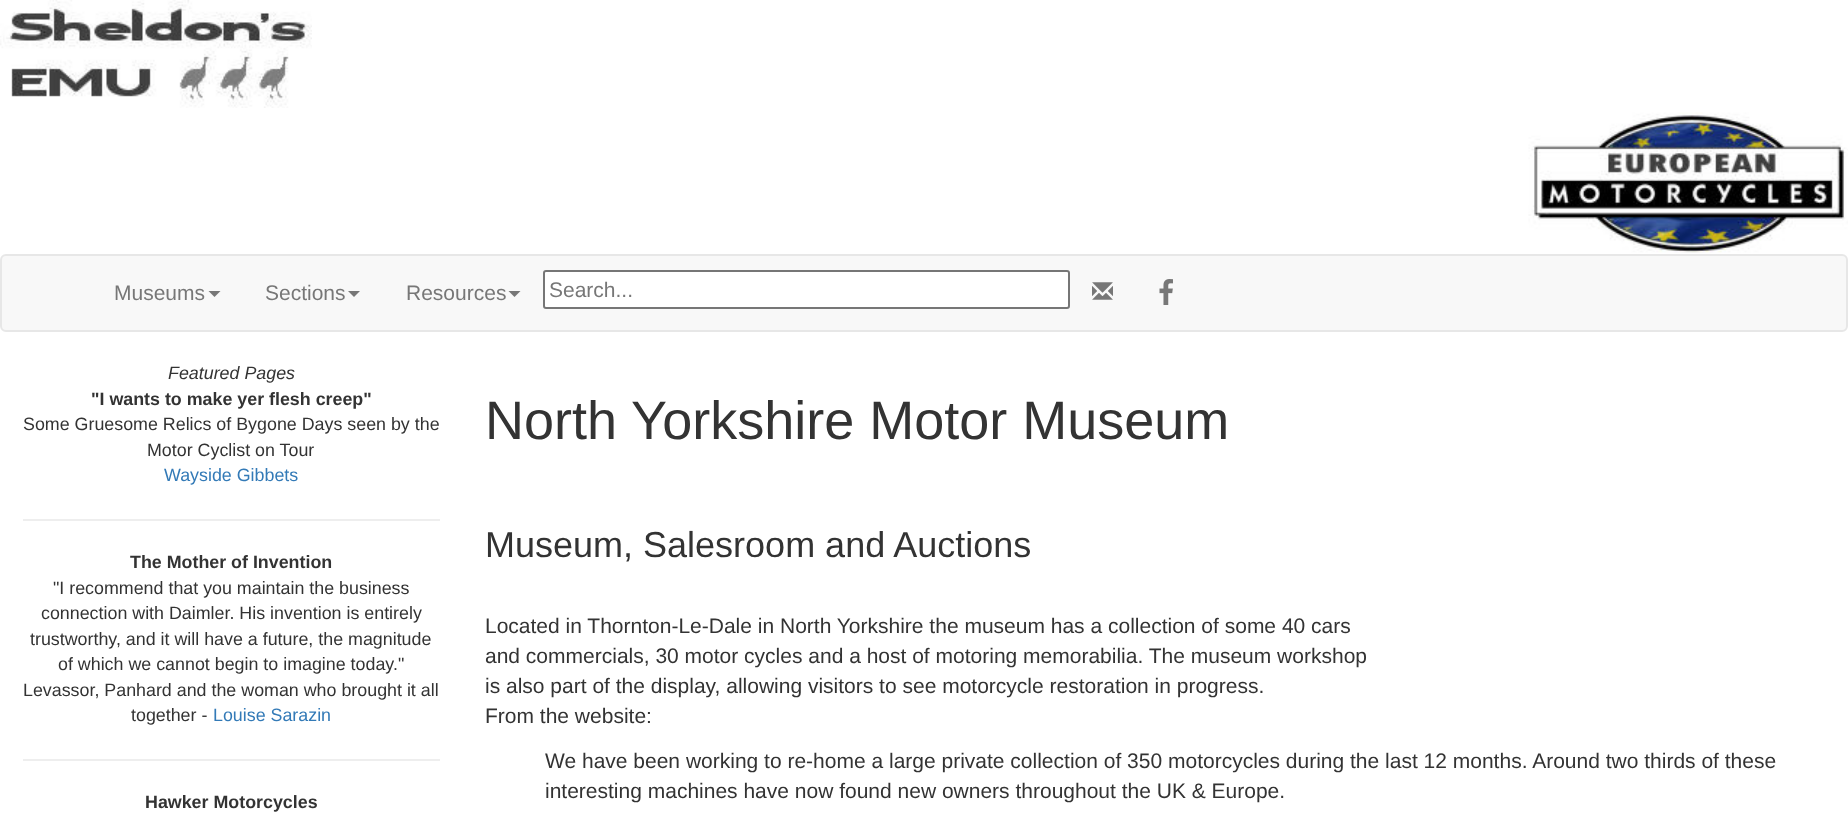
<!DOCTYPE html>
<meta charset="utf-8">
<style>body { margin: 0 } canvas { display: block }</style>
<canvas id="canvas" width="1848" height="824"></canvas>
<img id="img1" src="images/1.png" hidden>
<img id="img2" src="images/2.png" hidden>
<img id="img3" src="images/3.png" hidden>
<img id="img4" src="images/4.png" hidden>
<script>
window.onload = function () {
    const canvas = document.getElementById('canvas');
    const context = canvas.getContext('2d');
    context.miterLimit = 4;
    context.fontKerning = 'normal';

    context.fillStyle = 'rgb(255, 255, 255)';
    context.fillRect(0, 0, 1848, 824);
    context.drawImage(document.getElementById('img1'), 0, 0, 312, 108);
    context.drawImage(document.getElementById('img2'), 1528, 112, 320, 141);
    context.fillStyle = 'rgb(248, 248, 248)';
    context.beginPath();
    context.roundRect(1, 255, 1846, 76, 5);
    context.fill();
    context.strokeStyle = 'rgb(231, 231, 231)';
    context.lineWidth = 2;
    context.stroke();
    context.fillStyle = 'rgb(119, 119, 119)';
    context.beginPath();
    context.moveTo(208.5, 291);
    context.lineTo(220.5, 291);
    context.lineTo(214.5, 297);
    context.closePath();
    context.fill();
    context.beginPath();
    context.moveTo(348, 291);
    context.lineTo(360, 291);
    context.lineTo(354, 297);
    context.closePath();
    context.fill();
    context.beginPath();
    context.moveTo(508.5, 291);
    context.lineTo(520.5, 291);
    context.lineTo(514.5, 297);
    context.closePath();
    context.fill();
    context.fillStyle = 'rgb(255, 255, 255)';
    context.beginPath();
    context.roundRect(544, 271, 525, 37, 2);
    context.fill();
    context.strokeStyle = 'rgb(118, 118, 118)';
    context.stroke();
    context.drawImage(document.getElementById('img3'), 1092, 282, 21, 18);
    context.drawImage(document.getElementById('img4'), 1159, 279, 14, 26);
    context.fillStyle = 'rgb(238, 238, 238)';
    context.fillRect(23, 519, 417, 2);
    context.fillRect(23, 759, 417, 2);
    context.font = '21px Liberation Sans';
    context.fillStyle = 'rgb(119, 119, 119)';
    context.fillText('Museums', 114, 300);
    context.fillText('Sections', 265, 300);
    context.fillText('Resources', 406, 300);
    context.fillText('Search...', 549, 297);
    context.font = 'italic 17.85px Liberation Sans';
    context.fillStyle = 'rgb(51, 51, 51)';
    context.fillText('Featured Pages', 168, 379);
    context.font = 'bold 17.85px Liberation Sans';
    context.fillText('"I wants to make yer flesh creep"', 91, 405);
    context.font = '17.85px Liberation Sans';
    context.fillText('Some Gruesome Relics of Bygone Days seen by the', 23, 430);
    context.fillText('Motor Cyclist on Tour', 147, 456);
    context.fillStyle = 'rgb(51, 122, 183)';
    context.fillText('Wayside Gibbets', 164, 481);
    context.font = 'bold 17.85px Liberation Sans';
    context.fillStyle = 'rgb(51, 51, 51)';
    context.fillText('The Mother of Invention', 130, 568);
    context.font = '17.85px Liberation Sans';
    context.fillText('"I recommend that you maintain the business', 53, 594);
    context.fillText('connection with Daimler. His invention is entirely', 41, 619);
    context.fillText('trustworthy, and it will have a future, the magnitude', 30, 645);
    context.fillText('of which we cannot begin to imagine today."', 58, 670);
    context.fillText('Levassor, Panhard and the woman who brought it all', 23, 696);
    context.fillText('together -', 131, 721);
    context.fillStyle = 'rgb(51, 122, 183)';
    context.fillText('Louise Sarazin', 213, 721);
    context.font = 'bold 17.85px Liberation Sans';
    context.fillStyle = 'rgb(51, 51, 51)';
    context.fillText('Hawker Motorcycles', 145, 808);
    context.font = '54px Liberation Sans';
    context.fillText('North Yorkshire Motor Museum', 485, 439);
    context.font = '36px Liberation Sans';
    context.fillText('Museum, Salesroom and Auctions', 485, 557);
    context.font = '21px Liberation Sans';
    context.fillText('Located in Thornton-Le-Dale in North Yorkshire the museum has a collection of some 40 cars', 485, 633);
    context.fillText('and commercials, 30 motor cycles and a host of motoring memorabilia. The museum workshop', 485, 663);
    context.fillText('is also part of the display, allowing visitors to see motorcycle restoration in progress.', 485, 693);
    context.fillText('From the website:', 485, 723);
    context.fillText('We have been working to re-home a large private collection of 350 motorcycles during the last 12 months. Around two thirds of these', 545, 768);
    context.fillText('interesting machines have now found new owners throughout the UK & Europe.', 545, 798);
};
</script>
